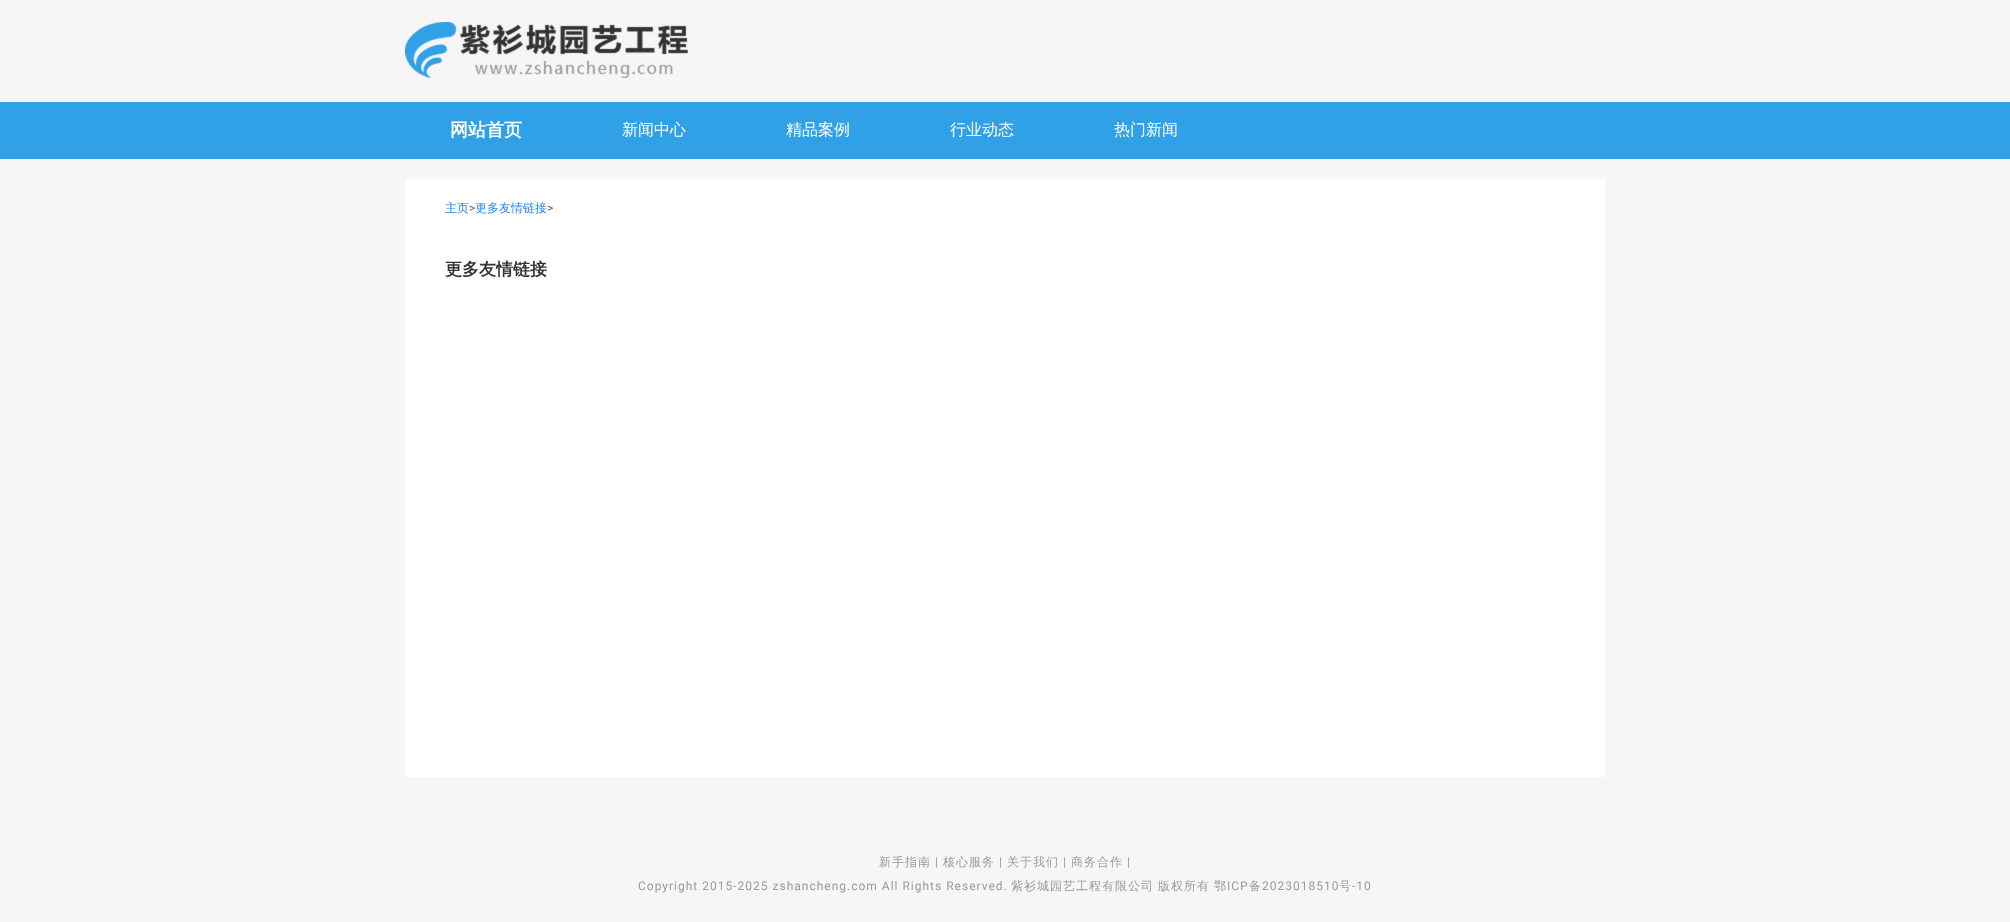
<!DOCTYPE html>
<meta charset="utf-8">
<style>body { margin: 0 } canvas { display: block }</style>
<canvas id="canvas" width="2010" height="922"></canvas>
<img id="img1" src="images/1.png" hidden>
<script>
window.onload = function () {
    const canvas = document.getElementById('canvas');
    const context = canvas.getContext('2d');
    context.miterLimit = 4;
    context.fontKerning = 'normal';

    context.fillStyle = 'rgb(246, 246, 246)';
    context.fillRect(0, 0, 2010, 922);
    context.drawImage(document.getElementById('img1'), 405, 22, 283, 56);
    context.fillStyle = 'rgb(48, 160, 231)';
    context.fillRect(0, 102, 2010, 57);
    context.fillStyle = 'rgb(255, 255, 255)';
    context.fillRect(405, 179, 1200, 598);
    context.font = 'bold 18px WenQuanYi Zen Hei';
    context.fillText('网站首页', 450, 136);
    context.font = '500 16px WenQuanYi Zen Hei';
    context.fillText('新闻中心', 622, 135);
    context.fillText('精品案例', 786, 135);
    context.fillText('行业动态', 950, 135);
    context.fillText('热门新闻', 1114, 135);
    context.font = '500 12px WenQuanYi Zen Hei';
    context.fillStyle = 'rgb(30, 135, 240)';
    context.fillText('主页', 445, 212);
    context.font = '12px Roboto';
    context.fillStyle = 'rgb(102, 102, 102)';
    context.fillText('>', 469, 212);
    context.font = '500 12px WenQuanYi Zen Hei';
    context.fillStyle = 'rgb(30, 135, 240)';
    context.fillText('更多友情链接', 475, 212);
    context.font = '12px Roboto';
    context.fillStyle = 'rgb(102, 102, 102)';
    context.fillText('>', 547, 212);
    context.font = 'bold 17px WenQuanYi Zen Hei';
    context.fillStyle = 'rgb(51, 51, 51)';
    context.fillText('更多友情链接', 445, 275);
    context.letterSpacing = '1px';
    context.font = '500 12px WenQuanYi Zen Hei';
    context.fillStyle = 'rgb(153, 153, 153)';
    context.fillText('新手指南', 879, 866);
    context.font = '12px Roboto';
    context.fillText('|', 935, 866);
    context.font = '500 12px WenQuanYi Zen Hei';
    context.fillText('核心服务', 943, 866);
    context.font = '12px Roboto';
    context.fillText('|', 999, 866);
    context.font = '500 12px WenQuanYi Zen Hei';
    context.fillText('关于我们', 1007, 866);
    context.font = '12px Roboto';
    context.fillText('|', 1063, 866);
    context.font = '500 12px WenQuanYi Zen Hei';
    context.fillText('商务合作', 1071, 866);
    context.font = '12px Roboto';
    context.fillText('|', 1127, 866);
    context.fillText('Copyright 2015-2025 zshancheng.com All Rights Reserved.', 638, 890);
    context.font = '500 12px WenQuanYi Zen Hei';
    context.fillText('紫衫城园艺工程有限公司', 1011, 890);
    context.fillText('版权所有', 1158, 890);
    context.fillText('鄂', 1214, 890);
    context.font = '12px Roboto';
    context.fillText('ICP', 1227, 890);
    context.font = '500 12px WenQuanYi Zen Hei';
    context.fillText('备', 1249, 890);
    context.font = '12px Roboto';
    context.fillText('2023018510', 1262, 890);
    context.font = '500 12px WenQuanYi Zen Hei';
    context.fillText('号', 1339, 890);
    context.font = '12px Roboto';
    context.fillText('-10', 1352, 890);
};
</script>
